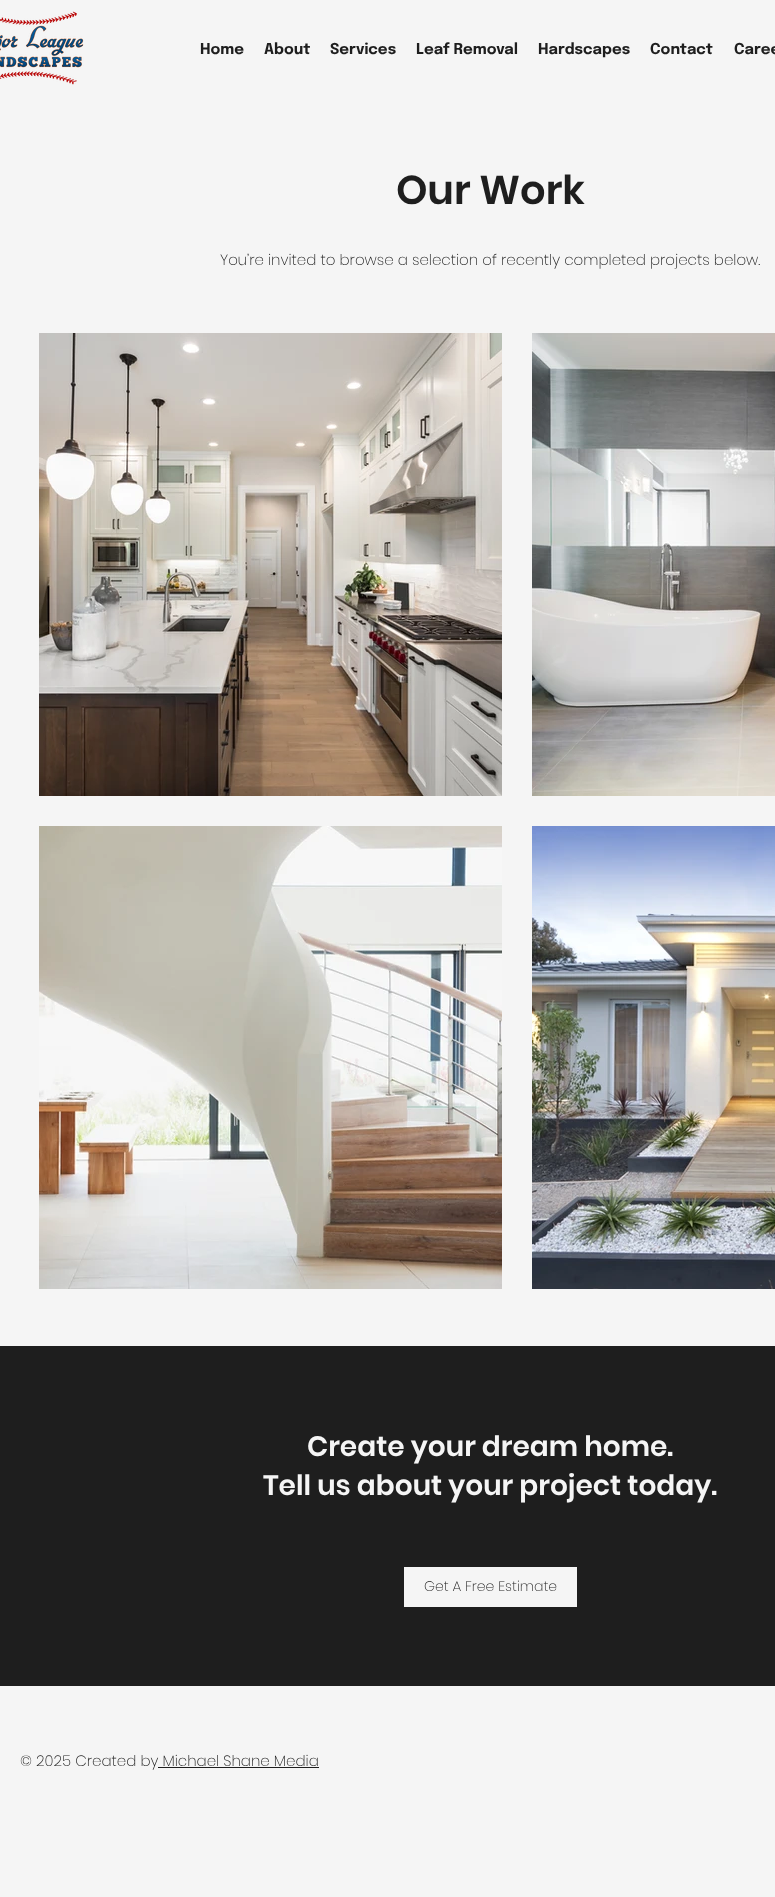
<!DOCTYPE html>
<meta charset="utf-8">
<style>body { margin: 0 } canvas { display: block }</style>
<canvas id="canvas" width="775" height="1897"></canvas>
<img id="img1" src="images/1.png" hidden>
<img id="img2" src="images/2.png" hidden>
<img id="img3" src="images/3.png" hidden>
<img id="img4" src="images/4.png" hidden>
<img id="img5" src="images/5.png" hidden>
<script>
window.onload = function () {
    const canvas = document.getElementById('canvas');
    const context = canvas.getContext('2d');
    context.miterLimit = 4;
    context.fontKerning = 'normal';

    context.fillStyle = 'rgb(245, 245, 245)';
    context.fillRect(0, 0, 775, 1897);
    context.drawImage(document.getElementById('img1'), 0, 11, 84, 74);
    context.drawImage(document.getElementById('img2'), 39, 333, 463, 463);
    context.drawImage(document.getElementById('img3'), 532, 333, 243, 463);
    context.drawImage(document.getElementById('img4'), 39, 826, 463, 463);
    context.drawImage(document.getElementById('img5'), 532, 826, 243, 463);
    context.fillStyle = 'rgb(30, 30, 30)';
    context.fillRect(0, 1346, 775, 340);
    context.fillStyle = 'rgb(245, 245, 245)';
    context.fillRect(404, 1567, 173, 40);
    context.fillStyle = 'rgb(30, 30, 30)';
    context.fillRect(158, 1767, 161, 1);
    context.font = 'bold 15px Epilogue';
    context.fillText('Home', 200, 54);
    context.fillText('About', 264, 54);
    context.fillText('Services', 330, 54);
    context.fillText('Leaf Removal', 416, 54);
    context.fillText('Hardscapes', 538, 54);
    context.fillText('Contact', 650, 54);
    context.fillText('Caree', 734, 54);
    context.font = '600 40px Poppins';
    context.fillText('Our Work', 396, 204);
    context.font = '200 15px Poppins';
    context.fillText('You’re invited to browse a selection of recently completed projects below.', 220, 265);
    context.font = '600 28px Poppins';
    context.fillStyle = 'rgb(245, 245, 245)';
    context.fillText('Create your dream home.', 307, 1456);
    context.fillText('Tell us about your project today.', 263, 1495);
    context.font = '200 14px Poppins';
    context.fillStyle = 'rgb(30, 30, 30)';
    context.fillText('Get A Free Estimate', 424, 1591);
    context.font = '200 15px Poppins';
    context.fillText('© 2025 Created by Michael Shane Media', 20, 1766);
};
</script>
